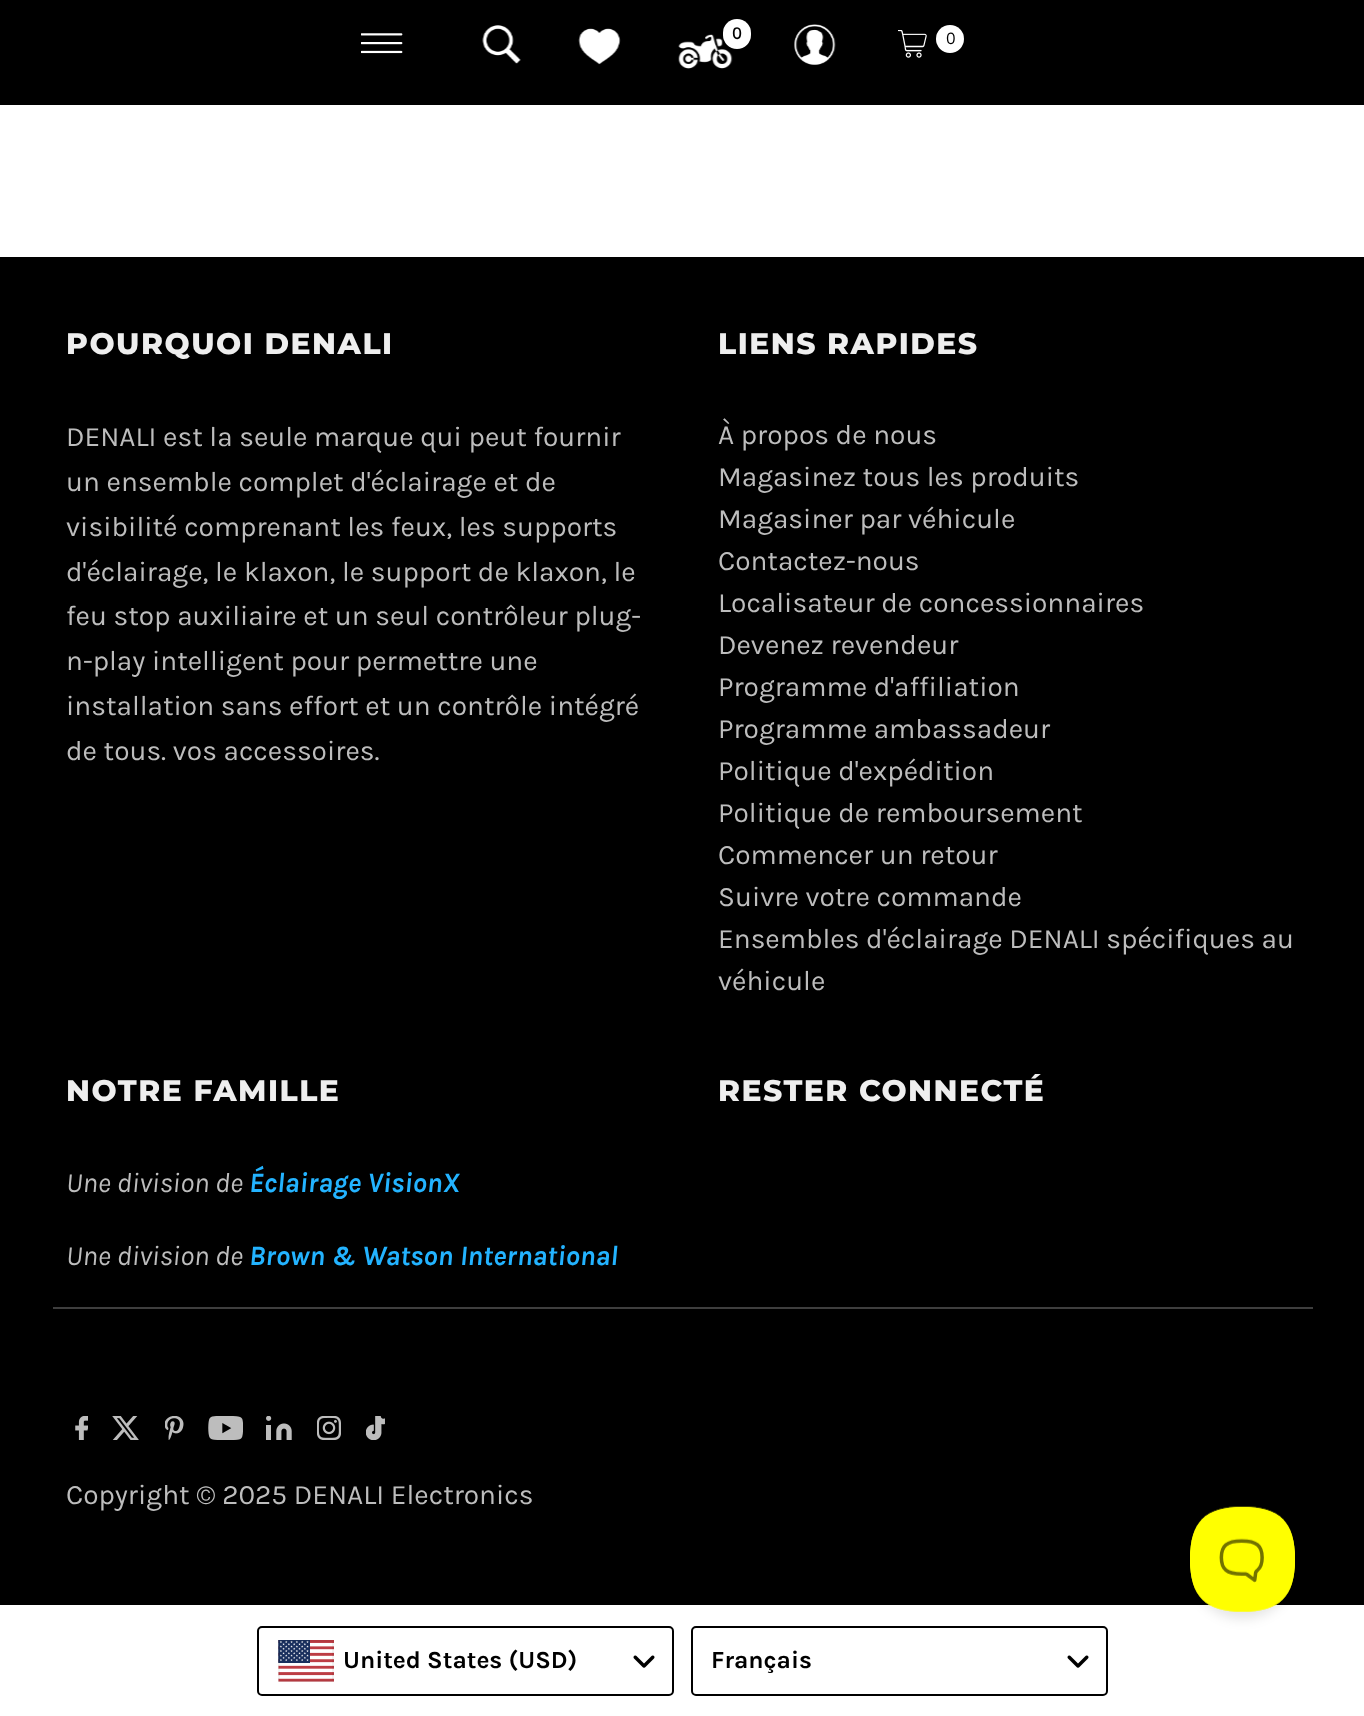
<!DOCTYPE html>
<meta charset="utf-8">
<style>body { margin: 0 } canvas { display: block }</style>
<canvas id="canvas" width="1364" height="1716"></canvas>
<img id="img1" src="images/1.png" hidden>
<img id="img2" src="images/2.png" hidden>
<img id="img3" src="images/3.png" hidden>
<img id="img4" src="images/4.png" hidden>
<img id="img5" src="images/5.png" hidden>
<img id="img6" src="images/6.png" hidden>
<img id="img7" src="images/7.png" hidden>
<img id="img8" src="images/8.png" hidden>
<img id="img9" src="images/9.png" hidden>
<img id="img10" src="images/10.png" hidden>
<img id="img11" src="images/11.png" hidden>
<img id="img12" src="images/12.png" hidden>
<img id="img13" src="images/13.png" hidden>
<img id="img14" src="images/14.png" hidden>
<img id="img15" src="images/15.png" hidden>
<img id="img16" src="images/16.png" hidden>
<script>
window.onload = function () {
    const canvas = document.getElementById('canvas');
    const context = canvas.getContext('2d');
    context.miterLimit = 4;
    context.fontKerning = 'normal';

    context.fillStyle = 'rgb(255, 255, 255)';
    context.fillRect(0, 0, 1364, 1716);
    context.fillStyle = 'rgb(0, 0, 0)';
    context.fillRect(0, 0, 1364, 105);
    context.drawImage(document.getElementById('img1'), 361, 33, 42, 21);
    context.drawImage(document.getElementById('img2'), 482, 25, 39, 39);
    context.drawImage(document.getElementById('img3'), 578, 28, 43, 37);
    context.drawImage(document.getElementById('img4'), 678, 34, 55, 35);
    context.fillStyle = 'rgb(255, 255, 255)';
    context.beginPath();
    context.roundRect(723, 19, 28, 30, 14);
    context.fill();
    context.drawImage(document.getElementById('img5'), 794, 24, 42, 41);
    context.drawImage(document.getElementById('img6'), 898, 30, 29, 28);
    context.beginPath();
    context.arc(950, 39, 14, 0, 2 * Math.PI);
    context.fill();
    context.fillStyle = 'rgb(0, 0, 0)';
    context.fillRect(0, 257, 1364, 1348);
    context.fillStyle = 'rgb(62, 62, 62)';
    context.fillRect(53, 1307, 1260, 2);
    context.drawImage(document.getElementById('img7'), 75, 1416, 13, 24);
    context.drawImage(document.getElementById('img8'), 112, 1416, 27, 24);
    context.drawImage(document.getElementById('img9'), 165, 1416, 19, 24);
    context.drawImage(document.getElementById('img10'), 208, 1416, 35, 24);
    context.drawImage(document.getElementById('img11'), 266, 1416, 26, 24);
    context.drawImage(document.getElementById('img12'), 317, 1416, 24, 24);
    context.drawImage(document.getElementById('img13'), 366, 1416, 19, 24);
    context.fillStyle = 'rgba(0, 0, 0, 0.1)';
    context.filter = 'blur(6px)';
    context.beginPath();
    context.roundRect(1190, 1514, 105, 105, 52.5);
    context.fill();
    context.filter = 'none';
    context.drawImage(document.getElementById('img14'), 1190, 1506, 105, 106);
    context.drawImage(document.getElementById('img15'), 633, 1655, 22, 13);
    context.beginPath();
    context.roundRect(258, 1627, 415, 68, 4);
    context.strokeStyle = 'rgb(0, 0, 0)';
    context.lineWidth = 2;
    context.stroke();
    context.drawImage(document.getElementById('img16'), 278, 1640, 56, 42);
    context.strokeStyle = 'rgba(0, 0, 0, 0.05)';
    context.strokeRect(279, 1641, 54, 40);
    context.drawImage(document.getElementById('img15'), 1067, 1655, 22, 13);
    context.beginPath();
    context.roundRect(692, 1627, 415, 68, 4);
    context.strokeStyle = 'rgb(0, 0, 0)';
    context.stroke();
    context.font = 'bold 16px Nunito';
    context.fillStyle = 'rgb(0, 0, 0)';
    context.fillText('0', 732, 39);
    context.font = '16px Nunito';
    context.fillText('0', 946, 44);
    context.letterSpacing = '1.5px';
    context.font = '800 29.75px Montserrat';
    context.fillStyle = 'rgb(238, 238, 238)';
    context.fillText('POURQUOI DENALI', 66, 354);
    context.letterSpacing = '0px';
    context.font = '28px Karla';
    context.fillStyle = 'rgb(189, 189, 189)';
    context.fillText('DENALI est la seule marque qui peut fournir', 66, 446);
    context.fillText('un ensemble complet d\'éclairage et de', 66, 491);
    context.fillText('visibilité comprenant les feux, les supports', 66, 536);
    context.fillText('d\'éclairage, le klaxon, le support de klaxon, le', 66, 581);
    context.fillText('feu stop auxiliaire et un seul contrôleur plug-', 66, 625);
    context.fillText('n-play intelligent pour permettre une', 66, 670);
    context.fillText('installation sans effort et un contrôle intégré', 66, 715);
    context.fillText('de tous. vos accessoires.', 66, 760);
    context.letterSpacing = '1.5px';
    context.font = '800 29.75px Montserrat';
    context.fillStyle = 'rgb(238, 238, 238)';
    context.fillText('LIENS RAPIDES', 718, 354);
    context.letterSpacing = '0px';
    context.font = '28px Karla';
    context.fillStyle = 'rgb(189, 189, 189)';
    context.fillText('À propos de nous', 718, 444);
    context.fillText('Magasinez tous les produits', 718, 486);
    context.fillText('Magasiner par véhicule', 718, 528);
    context.fillText('Contactez-nous', 718, 570);
    context.fillText('Localisateur de concessionnaires', 718, 612);
    context.fillText('Devenez revendeur', 718, 654);
    context.fillText('Programme d\'affiliation', 718, 696);
    context.fillText('Programme ambassadeur', 718, 738);
    context.fillText('Politique d\'expédition', 718, 780);
    context.fillText('Politique de remboursement', 718, 822);
    context.fillText('Commencer un retour', 718, 864);
    context.fillText('Suivre votre commande', 718, 906);
    context.fillText('Ensembles d\'éclairage DENALI spécifiques au', 718, 948);
    context.fillText('véhicule', 718, 990);
    context.letterSpacing = '1.5px';
    context.font = '800 29.75px Montserrat';
    context.fillStyle = 'rgb(238, 238, 238)';
    context.fillText('NOTRE FAMILLE', 66, 1101);
    context.letterSpacing = '0px';
    context.font = 'italic 28px Karla';
    context.fillStyle = 'rgb(189, 189, 189)';
    context.fillText('Une division de', 66, 1192);
    context.font = 'italic bold 28px Karla';
    context.fillStyle = 'rgb(35, 179, 255)';
    context.fillText('Éclairage VisionX', 249, 1192);
    context.font = 'italic 28px Karla';
    context.fillStyle = 'rgb(189, 189, 189)';
    context.fillText('Une division de', 66, 1265);
    context.font = 'italic bold 28px Karla';
    context.fillStyle = 'rgb(35, 179, 255)';
    context.fillText('Brown & Watson International', 249, 1265);
    context.letterSpacing = '1.5px';
    context.font = '800 29.75px Montserrat';
    context.fillStyle = 'rgb(238, 238, 238)';
    context.fillText('RESTER CONNECTÉ', 718, 1101);
    context.letterSpacing = '0px';
    context.font = '28px Karla';
    context.fillStyle = 'rgb(189, 189, 189)';
    context.fillText('Copyright © 2025 DENALI Electronics', 66, 1504);
    context.font = 'bold 24.5px Karla';
    context.fillStyle = 'rgb(0, 0, 0)';
    context.fillText('United States (USD)', 343, 1668);
    context.fillText('Français', 711, 1668);
};
</script>
